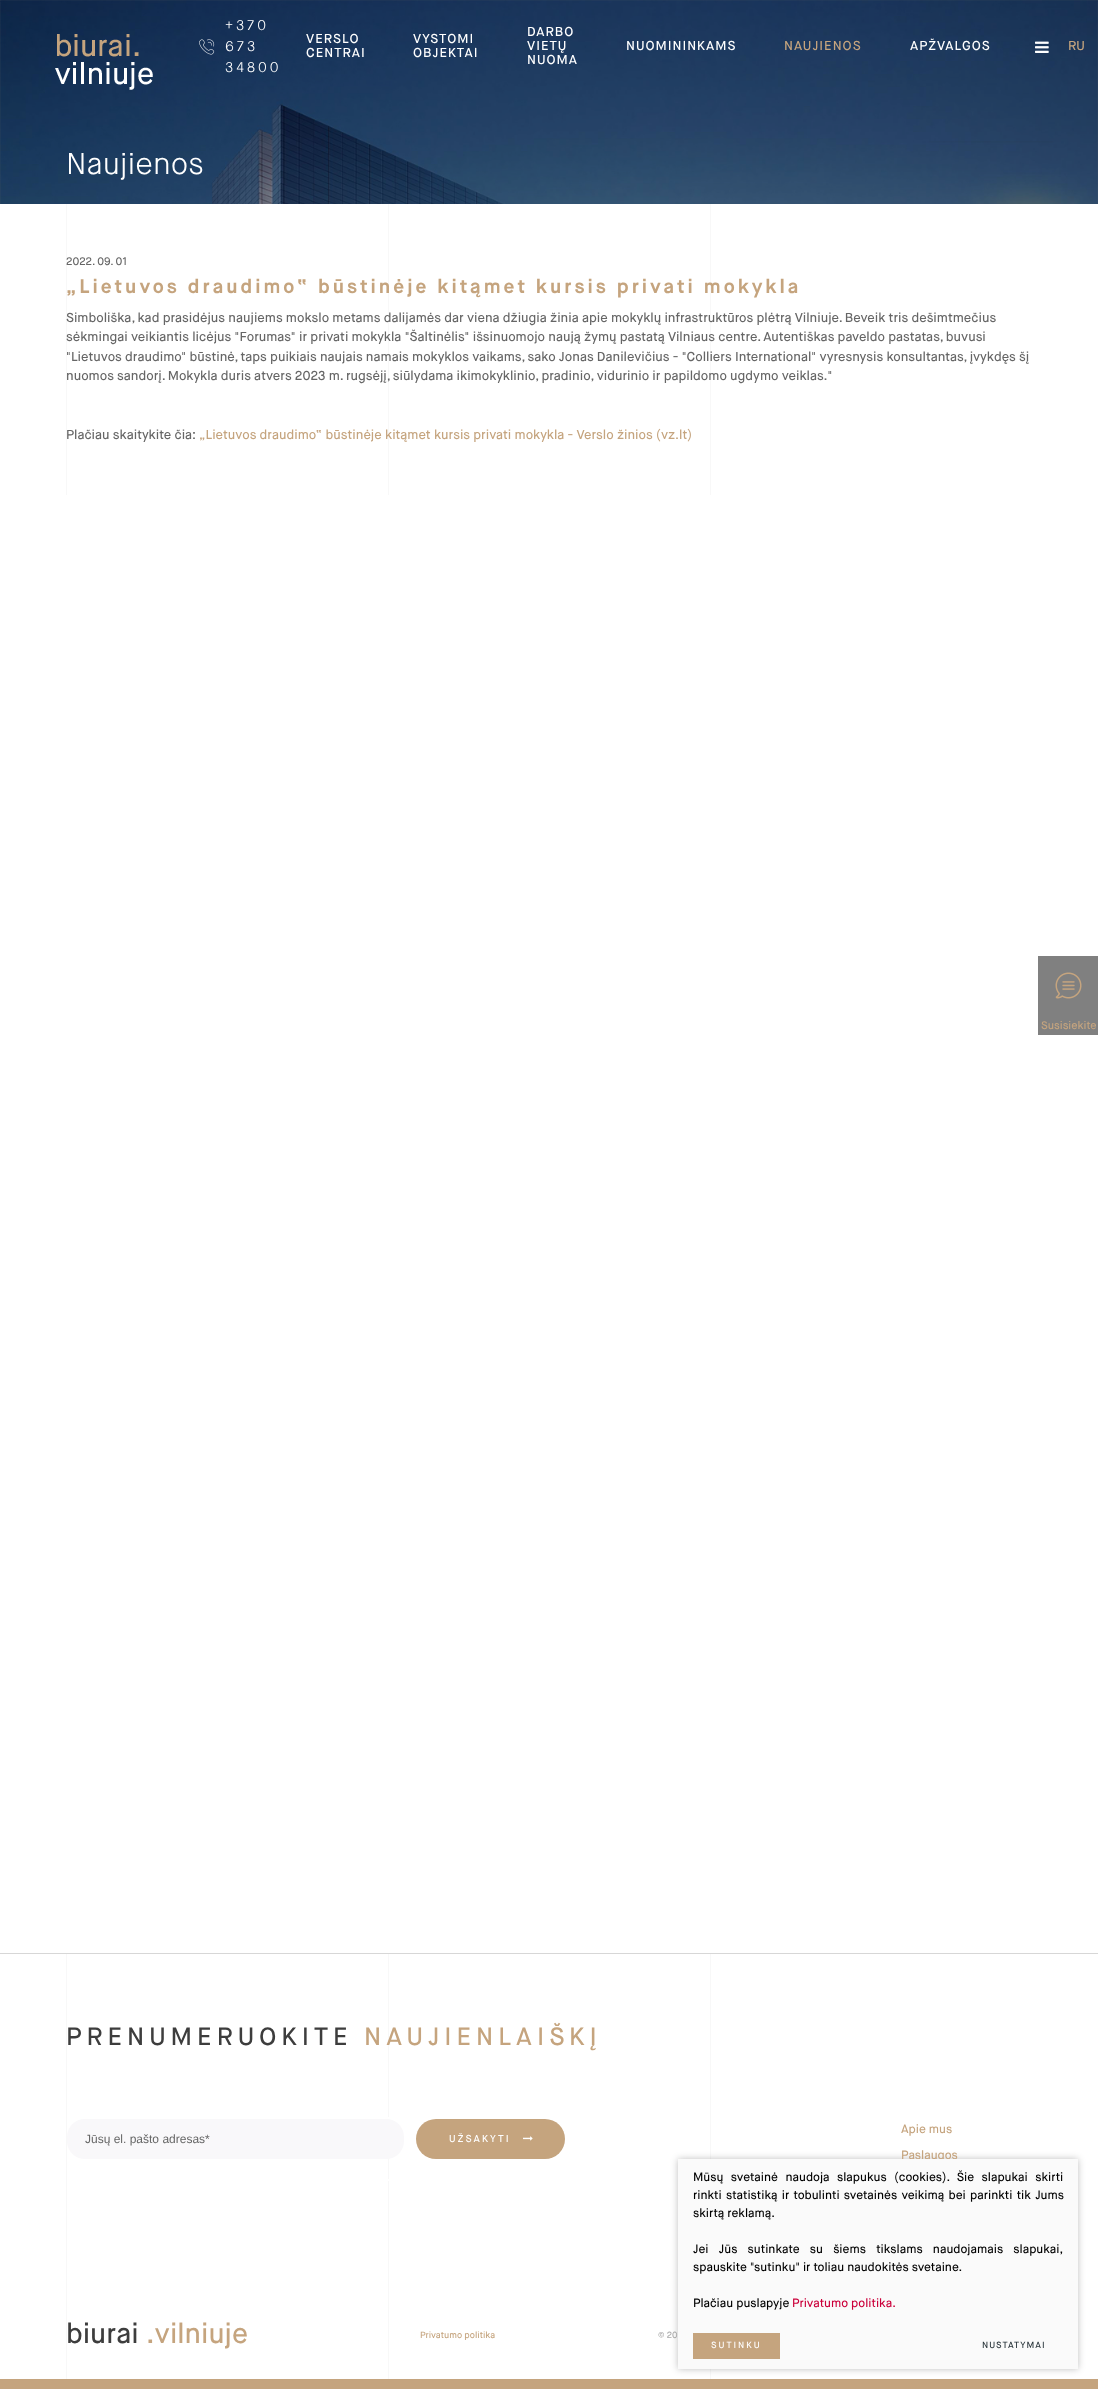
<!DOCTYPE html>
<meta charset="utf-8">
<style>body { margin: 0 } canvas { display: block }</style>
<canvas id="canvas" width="1098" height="2389"></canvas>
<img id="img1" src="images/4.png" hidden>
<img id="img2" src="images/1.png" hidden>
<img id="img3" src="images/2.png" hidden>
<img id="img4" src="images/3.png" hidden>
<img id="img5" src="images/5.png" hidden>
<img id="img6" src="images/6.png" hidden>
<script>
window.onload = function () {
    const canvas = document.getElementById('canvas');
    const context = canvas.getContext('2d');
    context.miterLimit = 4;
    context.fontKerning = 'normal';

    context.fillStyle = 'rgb(255, 255, 255)';
    context.fillRect(0, 0, 1098, 2389);
    context.drawImage(document.getElementById('img1'), 0, 0, 1098, 204);
    context.drawImage(document.getElementById('img2'), 55, 34, 98, 56);
    context.drawImage(document.getElementById('img3'), 199, 39, 16, 16);
    context.drawImage(document.getElementById('img4'), 1035, 41, 14, 12);
    context.fillStyle = 'rgb(248, 248, 248)';
    context.fillRect(66, 204, 1, 291);
    context.fillRect(388, 204, 1, 291);
    context.fillRect(710, 204, 1, 291);
    context.fillStyle = 'rgb(128, 128, 128)';
    context.fillRect(1038, 956, 60, 79);
    context.drawImage(document.getElementById('img5'), 1055, 972, 27, 27);
    context.fillStyle = 'rgb(215, 215, 215)';
    context.fillRect(0, 1953, 1098, 1);
    context.fillStyle = 'rgb(197, 164, 126)';
    context.fillRect(0, 2379, 1098, 10);
    context.fillStyle = 'rgb(248, 248, 248)';
    context.fillRect(66, 1954, 1, 425);
    context.fillRect(388, 1954, 1, 425);
    context.fillRect(710, 1954, 1, 425);
    context.strokeStyle = 'rgb(255, 255, 255)';
    context.lineWidth = 2;
    context.strokeRect(68, 2118, 498, 62);
    context.fillStyle = 'rgb(249, 248, 250)';
    context.beginPath();
    context.roundRect(67, 2119, 337, 40, 18);
    context.fill();
    context.fillStyle = 'rgb(197, 164, 126)';
    context.beginPath();
    context.roundRect(416, 2119, 149, 40, 20);
    context.fill();
    context.drawImage(document.getElementById('img6'), 523, 2136, 10, 5);
    context.fillStyle = 'rgba(0, 0, 0, 0.25)';
    context.filter = 'blur(3.5px)';
    context.beginPath();
    context.rect(678, 2159, 400, 210);
    context.fill();
    context.filter = 'none';
    context.letterSpacing = '3px';
    context.font = '300 14px Maison Neue';
    context.fillStyle = 'rgb(255, 255, 255)';
    context.fillText('+370', 225, 30);
    context.fillText('673', 225, 51);
    context.fillText('34800', 225, 72);
    context.letterSpacing = '1px';
    context.font = '500 13px Maison Neue';
    context.fillText('VERSLO', 306, 43);
    context.fillText('CENTRAI', 306, 57);
    context.fillText('VYSTOMI', 413, 43);
    context.fillText('OBJEKTAI', 413, 57);
    context.fillText('DARBO', 527, 36);
    context.fillText('VIETŲ', 527, 50);
    context.fillText('NUOMA', 527, 64);
    context.fillText('NUOMININKAMS', 626, 50);
    context.fillStyle = 'rgb(197, 164, 126)';
    context.fillText('NAUJIENOS', 784, 50);
    context.fillStyle = 'rgb(255, 255, 255)';
    context.fillText('APŽVALGOS', 910, 50);
    context.letterSpacing = '0px';
    context.fillStyle = 'rgb(197, 164, 126)';
    context.fillText('RU', 1068, 50);
    context.font = '300 30px Maison Neue';
    context.fillStyle = 'rgb(255, 255, 255)';
    context.fillText('Naujienos', 66, 174);
    context.font = '500 11px Maison Neue';
    context.fillStyle = 'rgb(102, 102, 102)';
    context.fillText('2022. 09. 01', 66, 265);
    context.letterSpacing = '3px';
    context.font = 'bold 19.5px Maison Neue';
    context.fillStyle = 'rgb(197, 164, 126)';
    context.fillText('„Lietuvos draudimo“ būstinėje kitąmet kursis privati mokykla', 66, 293);
    context.letterSpacing = '0px';
    context.font = '500 13px Maison Neue';
    context.fillStyle = 'rgb(102, 102, 102)';
    context.fillText('Simboliška, kad prasidėjus naujiems mokslo metams dalijamės dar viena džiugia žinia apie mokyklų infrastruktūros plėtrą Vilniuje. Beveik tris dešimtmečius', 66, 322);
    context.fillText('sėkmingai veikiantis licėjus "Forumas" ir privati mokykla "Šaltinėlis" išsinuomojo naują žymų pastatą Vilniaus centre. Autentiškas paveldo pastatas, buvusi', 66, 341);
    context.fillText('"Lietuvos draudimo" būstinė, taps puikiais naujais namais mokyklos vaikams, sako Jonas Danilevičius - "Colliers International" vyresnysis konsultantas, įvykdęs šį', 66, 361);
    context.fillText('nuomos sandorį. Mokykla duris atvers 2023 m. rugsėjį, siūlydama ikimokyklinio, pradinio, vidurinio ir papildomo ugdymo veiklas."', 66, 380);
    context.fillText('Plačiau skaitykite čia:', 66, 439);
    context.fillStyle = 'rgb(197, 164, 126)';
    context.fillText('„Lietuvos draudimo“ būstinėje kitąmet kursis privati mokykla - Verslo žinios (vz.lt)', 199, 439);
    context.font = '500 11px Maison Neue';
    context.fillText('Susisiekite', 1041, 1029);
    context.letterSpacing = '5px';
    context.font = '500 25px Maison Neue';
    context.fillStyle = 'rgb(61, 61, 61)';
    context.fillText('PRENUMERUOKITE', 66, 2045);
    context.fillStyle = 'rgb(197, 164, 126)';
    context.fillText('NAUJIENLAIŠKĮ', 364, 2045);
    context.letterSpacing = '0px';
    context.font = '12px Liberation Sans';
    context.fillStyle = 'rgb(102, 102, 102)';
    context.fillText('Jūsų el. pašto adresas*', 85, 2143);
    context.letterSpacing = '2px';
    context.font = '500 10px Maison Neue';
    context.fillStyle = 'rgb(255, 255, 255)';
    context.fillText('UŽSAKYTI', 449, 2142);
    context.letterSpacing = '0px';
    context.font = '500 12px Maison Neue';
    context.fillStyle = 'rgb(197, 164, 126)';
    context.fillText('Apie mus', 901, 2133);
    context.fillText('Paslaugos', 901, 2159);
    context.font = '500 28px Maison Neue';
    context.fillStyle = 'rgb(61, 61, 61)';
    context.fillText('biurai', 66, 2343);
    context.fillStyle = 'rgb(197, 164, 126)';
    context.fillText('.vilniuje', 146, 2343);
    context.font = '500 9px Maison Neue';
    context.fillText('Privatumo politika', 420, 2338);
    context.fillStyle = 'rgb(170, 170, 170)';
    context.fillText('© 20', 658, 2338);
    context.fillStyle = 'rgb(250, 250, 250)';
    context.fillRect(678, 2159, 400, 210);
    context.wordSpacing = '4.5px';
    context.font = '500 12px Maison Neue';
    context.fillStyle = 'rgb(0, 0, 0)';
    context.fillText('Mūsų svetainė naudoja slapukus (cookies). Šie slapukai skirti', 693, 2181);
    context.wordSpacing = '1.25px';
    context.fillText('rinkti statistiką ir tobulinti svetainės veikimą bei parinkti tik Jums', 693, 2199);
    context.wordSpacing = '0px';
    context.fillText('skirtą reklamą.', 693, 2217);
    context.wordSpacing = '7.25px';
    context.fillText('Jei Jūs sutinkate su šiems tikslams naudojamais slapukai,', 693, 2253);
    context.wordSpacing = '0px';
    context.fillText('spauskite "sutinku" ir toliau naudokitės svetaine.', 693, 2271);
    context.fillText('Plačiau puslapyje', 693, 2307);
    context.fillStyle = 'rgb(203, 0, 58)';
    context.fillText('Privatumo politika.', 792, 2307);
    context.fillStyle = 'rgb(197, 164, 126)';
    context.fillRect(693, 2333, 87, 26);
    context.letterSpacing = '2px';
    context.font = '500 9px Maison Neue';
    context.fillStyle = 'rgb(255, 255, 255)';
    context.fillText('SUTINKU', 711, 2348);
    context.letterSpacing = '1px';
    context.fillStyle = 'rgb(38, 50, 56)';
    context.fillText('NUSTATYMAI', 982, 2348);
};
</script>
